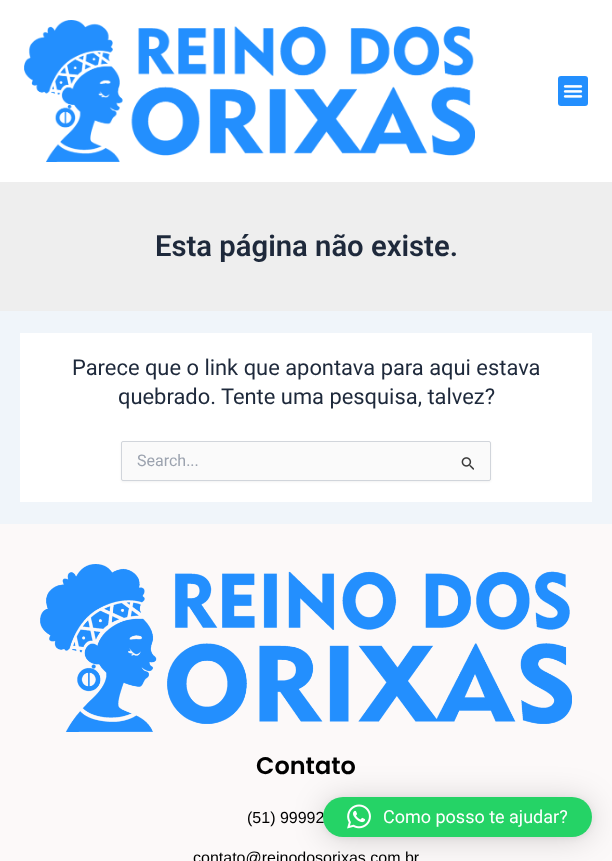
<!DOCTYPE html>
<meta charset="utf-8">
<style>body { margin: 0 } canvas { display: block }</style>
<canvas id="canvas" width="612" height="861"></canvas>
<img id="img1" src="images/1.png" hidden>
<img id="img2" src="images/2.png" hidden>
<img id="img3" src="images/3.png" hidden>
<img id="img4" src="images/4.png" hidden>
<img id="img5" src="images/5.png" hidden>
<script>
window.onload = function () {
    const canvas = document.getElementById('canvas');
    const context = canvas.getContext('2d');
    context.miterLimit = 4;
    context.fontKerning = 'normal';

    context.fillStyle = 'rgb(240, 245, 250)';
    context.fillRect(0, 0, 612, 861);
    context.fillStyle = 'rgb(255, 255, 255)';
    context.fillRect(0, 0, 612, 182);
    context.drawImage(document.getElementById('img1'), 24, 20, 451, 142);
    context.fillStyle = 'rgb(35, 143, 254)';
    context.beginPath();
    context.roundRect(558, 76, 30, 30, 3);
    context.fill();
    context.drawImage(document.getElementById('img2'), 563, 85, 20, 13);
    context.fillStyle = 'rgb(238, 238, 238)';
    context.fillRect(0, 182, 612, 129);
    context.fillStyle = 'rgb(255, 255, 255)';
    context.fillRect(20, 333, 572, 169);
    context.fillStyle = 'rgba(0, 0, 0, 0.05)';
    context.filter = 'blur(1px)';
    context.beginPath();
    context.roundRect(121, 442, 370, 40, 2);
    context.fill();
    context.filter = 'none';
    context.fillStyle = 'rgb(250, 250, 250)';
    context.beginPath();
    context.roundRect(121.5, 441.5, 369, 39, 1.5);
    context.fill();
    context.strokeStyle = 'rgb(209, 213, 219)';
    context.stroke();
    context.drawImage(document.getElementById('img3'), 461, 457, 13, 13);
    context.fillStyle = 'rgb(252, 249, 249)';
    context.fillRect(0, 524, 612, 337);
    context.drawImage(document.getElementById('img4'), 40, 564, 532, 168);
    context.fillStyle = 'rgba(0, 0, 0, 0.16)';
    context.filter = 'blur(16px)';
    context.beginPath();
    context.roundRect(323, 799, 269, 40, 20);
    context.fill();
    context.filter = 'none';
    context.fillStyle = 'rgba(0, 0, 0, 0.06)';
    context.filter = 'blur(3px)';
    context.beginPath();
    context.roundRect(323, 798, 269, 40, 20);
    context.fill();
    context.filter = 'none';
    context.font = '600 29.25px Roboto';
    context.fillStyle = 'rgb(30, 41, 59)';
    context.fillText('Esta página não existe.', 155, 256);
    context.font = '21.9px Roboto';
    context.fillText('Parece que o link que apontava para aqui estava', 72, 375);
    context.fillText('quebrado. Tente uma pesquisa, talvez?', 118, 404);
    context.font = '16px Roboto';
    context.fillStyle = 'rgb(156, 163, 175)';
    context.fillText('Search...', 137, 466);
    context.font = '600 24px Poppins';
    context.fillStyle = 'rgb(0, 0, 0)';
    context.fillText('Contato', 256, 774);
    context.font = '16px Liberation Sans';
    context.fillText('(51) 99992', 247, 823);
    context.fillText('contato@reinodosorixas.com.br', 193, 863);
    context.fillStyle = 'rgb(37, 211, 102)';
    context.beginPath();
    context.roundRect(323, 797, 269, 40, 20);
    context.fill();
    context.drawImage(document.getElementById('img5'), 347, 804, 24, 25);
    context.font = '18px Roboto';
    context.fillStyle = 'rgb(255, 255, 255)';
    context.fillText('Como posso te ajudar?', 383, 823);
};
</script>
